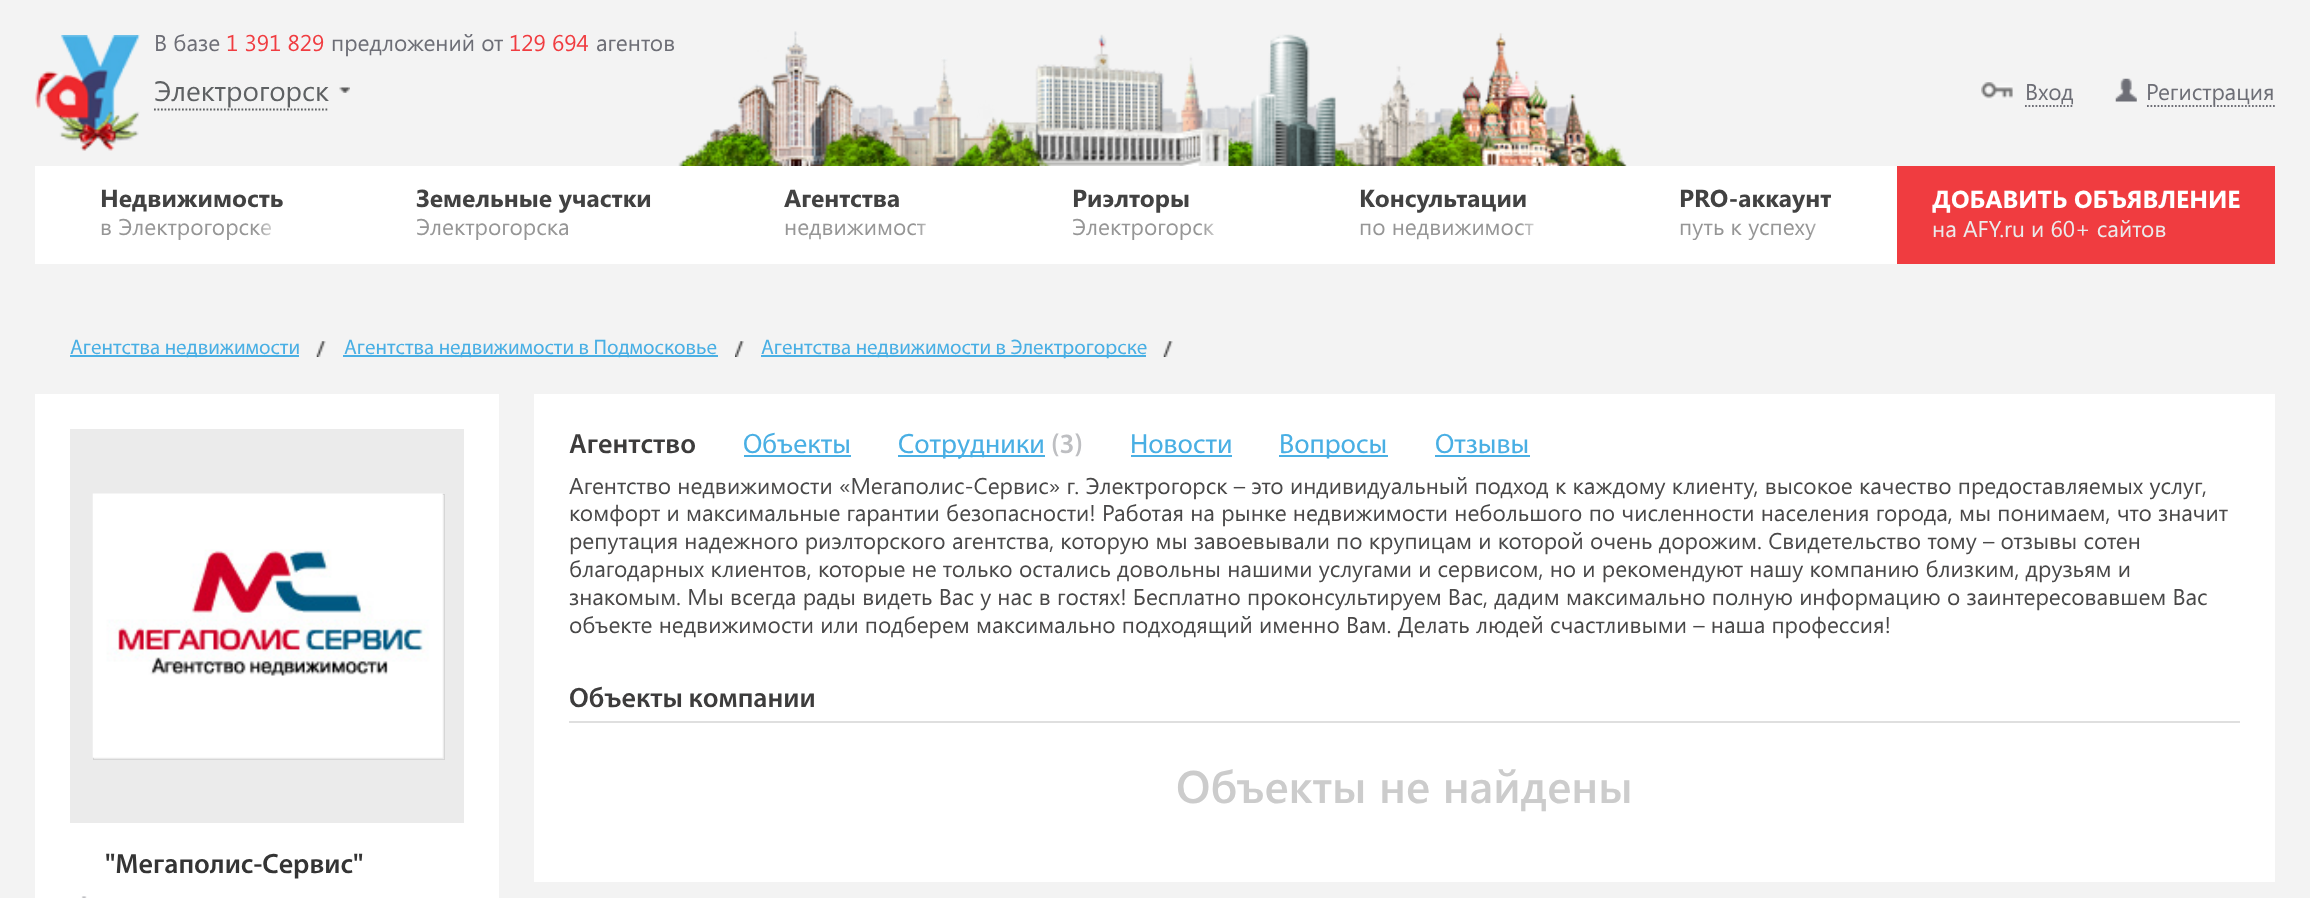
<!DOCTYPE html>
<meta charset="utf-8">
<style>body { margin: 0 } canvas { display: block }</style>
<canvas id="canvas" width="2310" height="898"></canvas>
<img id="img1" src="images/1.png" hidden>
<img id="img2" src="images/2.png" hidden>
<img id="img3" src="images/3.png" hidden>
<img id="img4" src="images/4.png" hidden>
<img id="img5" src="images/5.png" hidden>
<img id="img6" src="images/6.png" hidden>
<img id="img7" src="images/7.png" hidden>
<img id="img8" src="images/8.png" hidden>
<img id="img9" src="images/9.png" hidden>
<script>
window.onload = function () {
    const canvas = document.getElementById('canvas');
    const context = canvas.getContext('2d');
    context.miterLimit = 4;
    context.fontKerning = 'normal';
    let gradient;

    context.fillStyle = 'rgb(243, 243, 243)';
    context.fillRect(0, 0, 2310, 898);
    context.drawImage(document.getElementById('img1'), 678, 31, 949, 135);
    context.drawImage(document.getElementById('img2'), 35, 35, 105, 116);
    context.beginPath();
    context.moveTo(154, 109.5);
    context.lineTo(329, 109.5);
    context.strokeStyle = 'rgb(94, 97, 99)';
    context.lineWidth = 1.8;
    context.setLineDash([1.75, 1.75]);
    context.stroke();
    context.drawImage(document.getElementById('img3'), 339, 87, 11, 6);
    context.drawImage(document.getElementById('img4'), 1981, 82, 32, 18);
    context.beginPath();
    context.moveTo(2025, 106);
    context.lineTo(2074, 106);
    context.strokeStyle = 'rgb(109, 110, 118)';
    context.stroke();
    context.drawImage(document.getElementById('img5'), 2115, 78, 22, 24);
    context.beginPath();
    context.moveTo(2147, 106);
    context.lineTo(2275, 106);
    context.stroke();
    context.fillStyle = 'rgb(255, 255, 255)';
    context.fillRect(35, 166, 1862, 98);
    context.fillStyle = 'rgb(240, 60, 64)';
    context.fillRect(1897, 166, 378, 98);
    context.drawImage(document.getElementById('img6'), 316, 341, 10, 16);
    context.fillStyle = 'rgb(73, 175, 228)';
    context.fillRect(70, 355, 229, 2);
    context.drawImage(document.getElementById('img7'), 735, 341, 9, 16);
    context.fillRect(343, 355, 375, 2);
    context.drawImage(document.getElementById('img6'), 1163, 341, 10, 16);
    context.fillRect(761, 355, 385, 2);
    context.fillStyle = 'rgb(255, 255, 255)';
    context.fillRect(534, 394, 1741, 488);
    context.fillStyle = 'rgb(73, 175, 228)';
    context.fillRect(744, 455, 107, 2);
    context.fillRect(898, 455, 147, 2);
    context.fillRect(1131, 455, 101, 2);
    context.fillRect(1279, 455, 109, 2);
    context.fillRect(1435, 455, 95, 2);
    context.fillStyle = 'rgb(223, 223, 223)';
    context.fillRect(569, 721, 1671, 2);
    context.fillStyle = 'rgb(255, 255, 255)';
    context.fillRect(35, 394, 464, 504);
    context.fillStyle = 'rgb(235, 235, 235)';
    context.fillRect(70, 429, 394, 394);
    context.strokeStyle = 'rgb(212, 212, 212)';
    context.lineWidth = 0.9;
    context.setLineDash([]);
    context.strokeRect(93.45, 494.45, 351.1, 265.1);
    context.drawImage(document.getElementById('img8'), 92, 493, 351, 265);
    context.drawImage(document.getElementById('img9'), 81, 896, 6, 2);
    context.font = '22.75px Segoe UI';
    context.fillStyle = 'rgb(109, 110, 118)';
    context.fillText('В базе', 154, 51);
    context.fillStyle = 'rgb(240, 60, 64)';
    context.fillText('1 391 829', 226, 51);
    context.fillStyle = 'rgb(109, 110, 118)';
    context.fillText('предложений от', 331, 51);
    context.fillStyle = 'rgb(240, 60, 64)';
    context.fillText('129 694', 509, 51);
    context.fillStyle = 'rgb(109, 110, 118)';
    context.fillText('агентов', 596, 51);
    context.font = '28px Segoe UI';
    context.fillStyle = 'rgb(94, 97, 99)';
    context.fillText('Электрогорск', 154, 101);
    context.font = '22.75px Segoe UI';
    context.fillStyle = 'rgb(109, 110, 118)';
    context.fillText('Вход', 2025, 100);
    context.fillText('Регистрация', 2146, 100);
    context.font = 'bold 24.5px Segoe UI';
    context.fillStyle = 'rgb(66, 66, 66)';
    context.fillText('Недвижимость', 100, 207);
    context.save();
    context.beginPath();
    context.rect(100, 212, 184, 28);
    context.clip();
    context.font = '22.75px Segoe UI';
    context.fillStyle = 'rgb(150, 150, 150)';
    context.fillText('в Электрогорске', 100, 235);
    context.restore();
    gradient = context.createLinearGradient(256, 226, 284, 226);
    gradient.addColorStop(0, 'rgba(255, 255, 255, 0)');
    gradient.addColorStop(1, 'rgb(255, 255, 255)');
    context.fillStyle = gradient;
    context.fillRect(257, 223, 14, 13);
    context.fillStyle = 'rgb(66, 66, 66)';
    context.fillText('Земельные участки', 416, 207);
    context.save();
    context.beginPath();
    context.rect(417, 212, 234, 28);
    context.clip();
    context.font = '22.75px Segoe UI';
    context.fillStyle = 'rgb(150, 150, 150)';
    context.fillText('Электрогорска', 416, 235);
    context.restore();
    context.fillText('Агентства', 784, 207);
    context.font = '22.75px Segoe UI';
    context.fillStyle = 'rgb(150, 150, 150)';
    context.fillText('недвижимост', 784, 235);
    gradient = context.createLinearGradient(917, 226, 940, 226);
    gradient.addColorStop(0, 'rgba(255, 255, 255, 0)');
    gradient.addColorStop(1, 'rgb(255, 255, 255)');
    context.fillStyle = gradient;
    context.fillRect(918, 223, 9, 12);
    context.font = 'bold 24.5px Segoe UI';
    context.fillStyle = 'rgb(66, 66, 66)';
    context.fillText('Риэлторы', 1072, 207);
    context.save();
    context.beginPath();
    context.rect(1073, 212, 154, 28);
    context.clip();
    context.font = '22.75px Segoe UI';
    context.fillStyle = 'rgb(150, 150, 150)';
    context.fillText('Электрогорск', 1072, 235);
    context.restore();
    gradient = context.createLinearGradient(1202, 226, 1227, 226);
    gradient.addColorStop(0, 'rgba(255, 255, 255, 0)');
    gradient.addColorStop(1, 'rgb(255, 255, 255)');
    context.fillStyle = gradient;
    context.fillRect(1205, 223, 10, 12);
    context.fillStyle = 'rgb(66, 66, 66)';
    context.fillText('Консультации', 1359, 207);
    context.font = '22.75px Segoe UI';
    context.fillStyle = 'rgb(150, 150, 150)';
    context.fillText('по недвижимост', 1359, 235);
    gradient = context.createLinearGradient(1519, 226, 1547, 226);
    gradient.addColorStop(0, 'rgba(255, 255, 255, 0)');
    gradient.addColorStop(1, 'rgb(255, 255, 255)');
    context.fillStyle = gradient;
    context.fillRect(1520, 223, 14, 12);
    context.font = 'bold 24.5px Segoe UI';
    context.fillStyle = 'rgb(66, 66, 66)';
    context.fillText('PRO-аккаунт', 1679, 207);
    context.save();
    context.beginPath();
    context.rect(1680, 212, 152, 28);
    context.clip();
    context.font = '22.75px Segoe UI';
    context.fillStyle = 'rgb(150, 150, 150)';
    context.fillText('путь к успеху', 1679, 235);
    context.restore();
    gradient = context.createLinearGradient(1810, 226, 1832, 226);
    gradient.addColorStop(0, 'rgba(255, 255, 255, 0)');
    gradient.addColorStop(1, 'rgb(255, 255, 255)');
    context.fillStyle = gradient;
    context.fillRect(1811, 223, 6, 13);
    context.fillStyle = 'rgb(255, 255, 255)';
    context.fillText('ДОБАВИТЬ ОБЪЯВЛЕНИЕ', 1932, 208);
    context.font = '22.75px Segoe UI';
    context.fillStyle = 'rgb(235, 235, 235)';
    context.fillText('на AFY.ru и 60+ сайтов', 1932, 237);
    context.font = '21px Myriad';
    context.fillStyle = 'rgb(73, 175, 228)';
    context.fillText('Агентства недвижимости', 70, 354);
    context.fillText('Агентства недвижимости в Подмосковье', 344, 354);
    context.fillText('Агентства недвижимости в Электрогорске', 761, 354);
    context.font = '600 28px Myriad';
    context.fillStyle = 'rgb(61, 60, 60)';
    context.fillText('Агентство', 569, 453);
    context.font = '28px Myriad';
    context.fillStyle = 'rgb(73, 175, 228)';
    context.fillText('Объекты', 743, 453);
    context.fillText('Сотрудники', 898, 453);
    context.font = '600 28px Myriad';
    context.fillStyle = 'rgb(190, 191, 194)';
    context.fillText('(3)', 1051, 453);
    context.font = '28px Myriad';
    context.fillStyle = 'rgb(73, 175, 228)';
    context.fillText('Новости', 1130, 453);
    context.fillText('Вопросы', 1279, 453);
    context.fillText('Отзывы', 1435, 453);
    context.font = '22.75px Segoe UI';
    context.fillStyle = 'rgb(73, 72, 72)';
    context.fillText('Агентство недвижимости «Мегаполис-Сервис» г. Электрогорск – это индивидуальный подход к каждому клиенту, высокое качество предоставляемых услуг,', 569, 494);
    context.fillText('комфорт и максимальные гарантии безопасности! Работая на рынке недвижимости небольшого по численности населения города, мы понимаем, что значит', 569, 521);
    context.fillText('репутация надежного риэлторского агентства, которую мы завоевывали по крупицам и которой очень дорожим. Свидетельство тому – отзывы сотен', 569, 549);
    context.fillText('благодарных клиентов, которые не только остались довольны нашими услугами и сервисом, но и рекомендуют нашу компанию близким, друзьям и', 569, 577);
    context.fillText('знакомым. Мы всегда рады видеть Вас у нас в гостях! Бесплатно проконсультируем Вас, дадим максимально полную информацию о заинтересовавшем Вас', 569, 605);
    context.fillText('объекте недвижимости или подберем максимально подходящий именно Вам. Делать людей счастливыми – наша профессия!', 569, 633);
    context.font = '600 28px Myriad';
    context.fillStyle = 'rgb(61, 60, 60)';
    context.fillText('Объекты компании', 569, 707);
    context.font = '600 45.5px Segoe UI';
    context.fillStyle = 'rgb(204, 204, 204)';
    context.fillText('Объекты не найдены', 1176, 803);
    context.font = '600 28px Myriad';
    context.fillStyle = 'rgb(52, 52, 52)';
    context.fillText('"Мегаполис-Сервис"', 105, 873);
};
</script>
